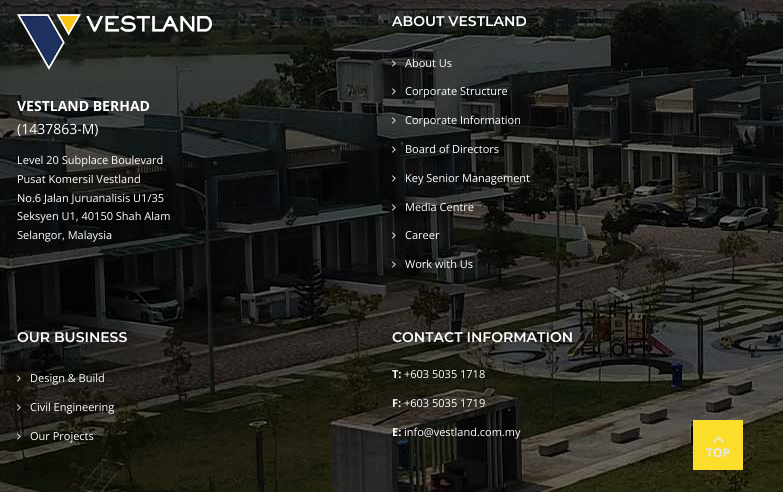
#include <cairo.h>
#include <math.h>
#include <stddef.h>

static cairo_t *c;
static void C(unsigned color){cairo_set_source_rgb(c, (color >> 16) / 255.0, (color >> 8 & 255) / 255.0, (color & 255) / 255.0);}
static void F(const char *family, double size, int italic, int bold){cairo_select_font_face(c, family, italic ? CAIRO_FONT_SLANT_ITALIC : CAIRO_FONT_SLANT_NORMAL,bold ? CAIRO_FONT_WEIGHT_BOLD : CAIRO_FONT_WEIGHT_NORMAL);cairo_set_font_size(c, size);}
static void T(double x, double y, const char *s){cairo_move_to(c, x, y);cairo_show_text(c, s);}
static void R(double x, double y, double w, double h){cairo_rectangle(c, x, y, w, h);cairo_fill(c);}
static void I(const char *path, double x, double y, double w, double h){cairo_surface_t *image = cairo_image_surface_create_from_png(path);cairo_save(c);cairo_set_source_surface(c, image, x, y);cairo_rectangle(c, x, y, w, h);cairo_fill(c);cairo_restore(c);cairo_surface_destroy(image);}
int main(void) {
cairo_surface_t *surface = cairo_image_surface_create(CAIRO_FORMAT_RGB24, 783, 492);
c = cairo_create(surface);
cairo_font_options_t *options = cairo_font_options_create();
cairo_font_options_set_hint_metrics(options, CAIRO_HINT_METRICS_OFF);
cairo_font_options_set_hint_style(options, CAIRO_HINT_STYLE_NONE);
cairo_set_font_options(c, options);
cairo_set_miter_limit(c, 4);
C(0xffffff);
cairo_paint(c);
I("1.png",0,0,783,492);
I("2.png",17,14,195,56);
F("Open Sans",14,0,1);
C(0xffffff);
T(17,111,"VESTLAND BERHAD");
F("Open Sans",14,0,0);
T(17,134,"(1437863-M)");
F("Open Sans",11,0,0);
T(17,164,"Level 20 Subplace Boulevard");
T(17,183,"Pusat Komersil Vestland");
T(17,202,"No.6 Jalan Juruanalisis U1/35");
T(17,220,"Seksyen U1, 40150 Shah Alam");
T(17,239,"Selangor, Malaysia");
F("Montserrat SemiBold",14,0,0);
T(392,26,"ABOUT VESTLAND");
I("3.png",392,60,4,7);
F("Open Sans",11,0,0);
T(405,67,"About Us");
I("4.png",392,88,4,7);
T(405,95,"Corporate Structure");
I("5.png",392,117,4,7);
T(405,124,"Corporate Information");
I("6.png",392,146,4,7);
T(405,153,"Board of Directors");
I("7.png",392,175,4,7);
T(405,182,"Key Senior Management");
I("8.png",392,204,4,7);
T(405,211,"Media Centre");
I("9.png",392,232,4,7);
T(405,239,"Career");
I("10.png",392,261,4,7);
T(405,268,"Work with Us");
F("Montserrat SemiBold",14,0,0);
T(17,342,"OUR BUSINESS");
I("11.png",17,375,4,7);
F("Open Sans",11,0,0);
T(30,382,"Design & Build");
I("12.png",17,404,4,7);
T(30,411,"Civil Engineering");
I("13.png",17,433,4,7);
T(30,440,"Our Projects");
F("Montserrat SemiBold",14,0,0);
T(392,342,"CONTACT INFORMATION");
F("Open Sans",11,0,1);
T(392,378,"T:");
F("Open Sans",11,0,0);
T(404,378,"+603 5035 1718");
F("Open Sans",11,0,1);
T(392,407,"F:");
F("Open Sans",11,0,0);
T(404,407,"+603 5035 1719");
F("Open Sans",11,0,1);
T(392,436,"E:");
F("Open Sans",11,0,0);
T(404,436,"info@vestland.com.my");
C(0xfade2a);
R(693,420,50,50);
I("14.png",712,436,12,7);
F("Open Sans",12,0,1);
C(0xe6e7e8);
T(706,457,"TOP");
cairo_surface_write_to_png(surface, "o.png");
cairo_font_options_destroy(options);
cairo_destroy(c);
cairo_surface_destroy(surface);
return 0;
}
